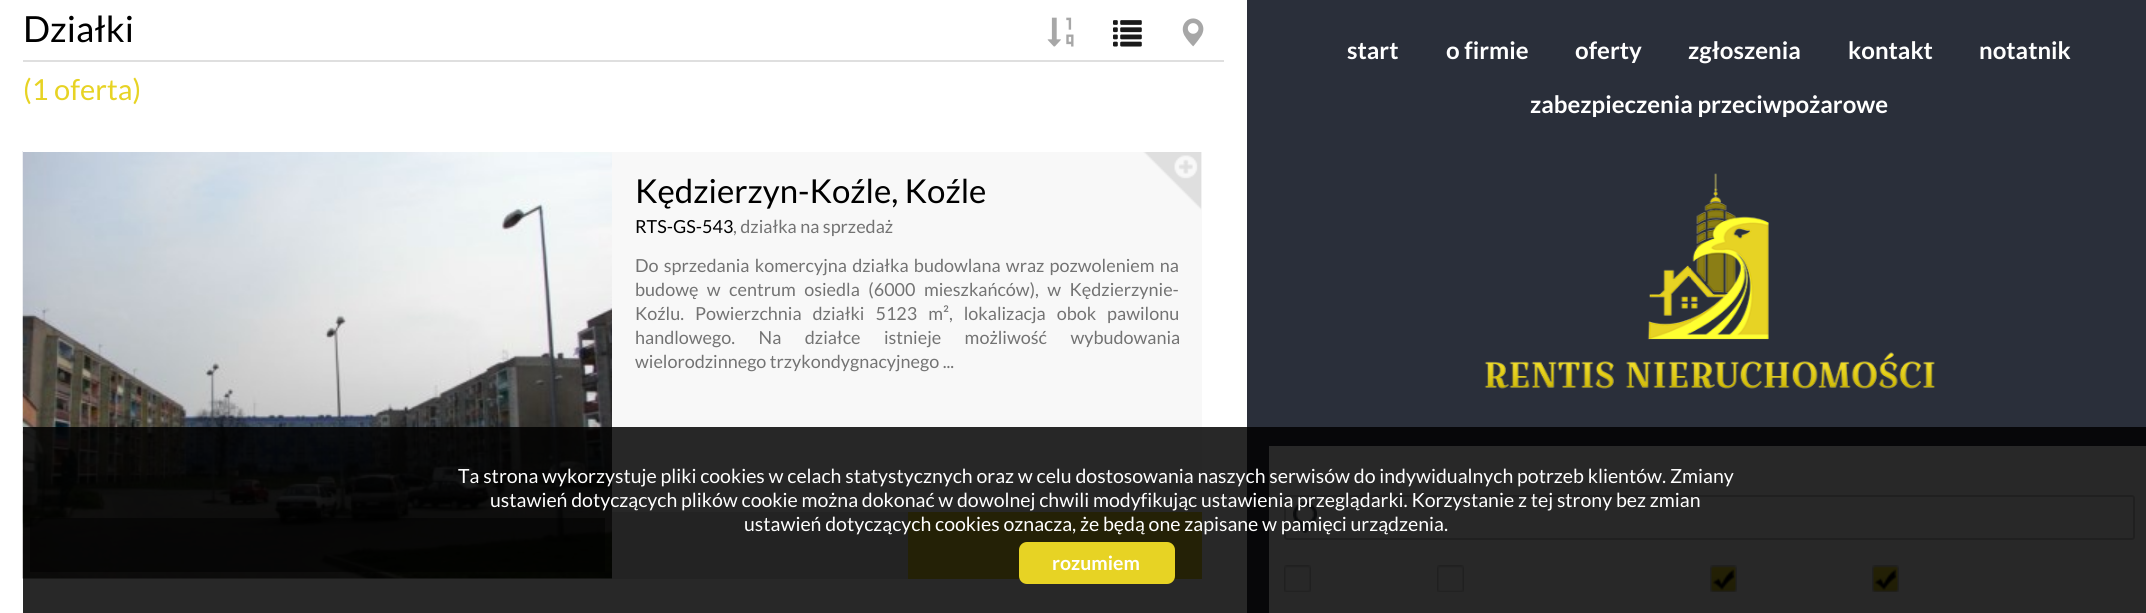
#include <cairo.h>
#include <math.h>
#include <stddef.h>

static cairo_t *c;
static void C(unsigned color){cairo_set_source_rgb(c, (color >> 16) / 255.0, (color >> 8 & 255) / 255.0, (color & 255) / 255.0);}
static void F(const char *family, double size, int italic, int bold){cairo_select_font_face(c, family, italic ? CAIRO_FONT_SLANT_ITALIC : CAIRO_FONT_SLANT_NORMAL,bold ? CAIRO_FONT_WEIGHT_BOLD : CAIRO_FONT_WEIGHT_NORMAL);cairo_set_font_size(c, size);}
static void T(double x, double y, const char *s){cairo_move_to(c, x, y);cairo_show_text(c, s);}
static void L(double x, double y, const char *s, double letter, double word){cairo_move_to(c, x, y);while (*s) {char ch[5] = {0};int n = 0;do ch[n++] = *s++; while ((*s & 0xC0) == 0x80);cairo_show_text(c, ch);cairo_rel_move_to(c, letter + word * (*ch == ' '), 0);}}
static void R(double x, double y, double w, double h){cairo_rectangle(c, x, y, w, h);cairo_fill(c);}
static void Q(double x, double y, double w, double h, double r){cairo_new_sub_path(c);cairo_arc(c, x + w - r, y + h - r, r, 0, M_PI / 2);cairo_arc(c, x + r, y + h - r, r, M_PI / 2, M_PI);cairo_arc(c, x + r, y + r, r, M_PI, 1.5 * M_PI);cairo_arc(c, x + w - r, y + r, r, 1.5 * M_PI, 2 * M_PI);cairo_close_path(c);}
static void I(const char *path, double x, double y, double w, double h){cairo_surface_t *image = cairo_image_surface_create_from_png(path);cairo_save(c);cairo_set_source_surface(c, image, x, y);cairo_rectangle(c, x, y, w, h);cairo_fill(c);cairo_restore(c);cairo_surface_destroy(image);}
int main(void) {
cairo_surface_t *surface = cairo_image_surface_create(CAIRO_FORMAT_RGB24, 2146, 613);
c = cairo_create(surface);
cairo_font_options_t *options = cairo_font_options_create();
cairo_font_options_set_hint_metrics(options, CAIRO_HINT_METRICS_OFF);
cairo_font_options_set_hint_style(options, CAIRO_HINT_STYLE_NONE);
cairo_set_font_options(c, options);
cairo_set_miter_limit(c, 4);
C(0xffffff);
cairo_paint(c);
C(0xf8f8f8);
R(23,578,589,1);
I("4.png",22,151,590,428);
C(0xffffff);
R(23,151,589,1);
F("Lato",36,0,0);
C(0x000000);
T(23,42,"Działki");
I("1.png",1047,17,27,30);
I("2.png",1113,20,29,27);
I("3.png",1182,18,22,29);
C(0xdfdfdf);
R(23,60,1201,2);
F("Lato",29,0,0);
C(0xe7d324);
T(23,100,"(1 oferta)");
cairo_set_source_rgba(c,0,0,0,0.5);
R(30,518,575,54);
C(0xf8f8f8);
R(612,152,590,360);
F("Lato",33,0,0);
C(0x000000);
T(635,203,"Kędzierzyn-Koźle, Koźle");
I("5.png",1143,152,59,58);
F("Lato",18,0,0);
T(635,233,"RTS-GS-543");
C(0x737373);
T(733,233,", działka na sprzedaż");
L(635,272,"Do sprzedania komercyjna działka budowlana wraz pozwoleniem na",0,1.75);
L(635,296,"budowę w centrum osiedla (6000 mieszkańców), w Kędzierzynie-",0,5);
T(635,320,"Koźlu.");
L(695,320,"Powierzchnia działki 5123 m², lokalizacja obok pawilonu",0,7.5);
L(635,344,"handlowego. Na działce istnieje możliwość wybudowania",0,20);
T(635,368,"wielorodzinnego trzykondygnacyjnego ...");
C(0xdedede);
R(612,512,296,67);
C(0xe7d324);
R(908,512,294,67);
C(0x2a2f3a);
R(1247,0,899,613);
F("Lato",24,0,1);
C(0xffffff);
T(1347,59,"start");
T(1446,59,"o firmie");
T(1575,59,"oferty");
T(1688,59,"zgłoszenia");
T(1848,59,"kontakt");
T(1979,59,"notatnik");
T(1530,113,"zabezpieczenia przeciwpożarowe");
I("6.png",1484,173,451,216);
R(1269,446,877,167);
I("8.png",1293,502,24,31);
I("7.png",1293,502,24,31);
Q(1285,496,849,43,2);
C(0xcccccc);
cairo_stroke(c);
I("9.png",1284,565,27,27);
I("9.png",1437,565,27,27);
I("10.png",1710,565,27,27);
I("10.png",1872,565,27,27);
cairo_set_source_rgba(c,0,0,0,0.84);
R(23,427,2123,186);
F("Lato",19.5,0,0);
C(0xffffff);
T(458,483,"Ta strona wykorzystuje pliki cookies w celach statystycznych oraz w celu dostosowania naszych serwisów do indywidualnych potrzeb klientów. Zmiany");
T(490,507,"ustawień dotyczących plików cookie można dokonać w dowolnej chwili modyfikując ustawienia przeglądarki. Korzystanie z tej strony bez zmian");
T(744,531,"ustawień dotyczących cookies oznacza, że będą one zapisane w pamięci urządzenia.");
C(0xe7d324);
Q(1019,542,156,42,8);
cairo_fill(c);
F("Lato",19.5,0,1);
C(0xffffff);
T(1052,570,"rozumiem");
cairo_surface_write_to_png(surface, "o.png");
cairo_font_options_destroy(options);
cairo_destroy(c);
cairo_surface_destroy(surface);
return 0;
}
